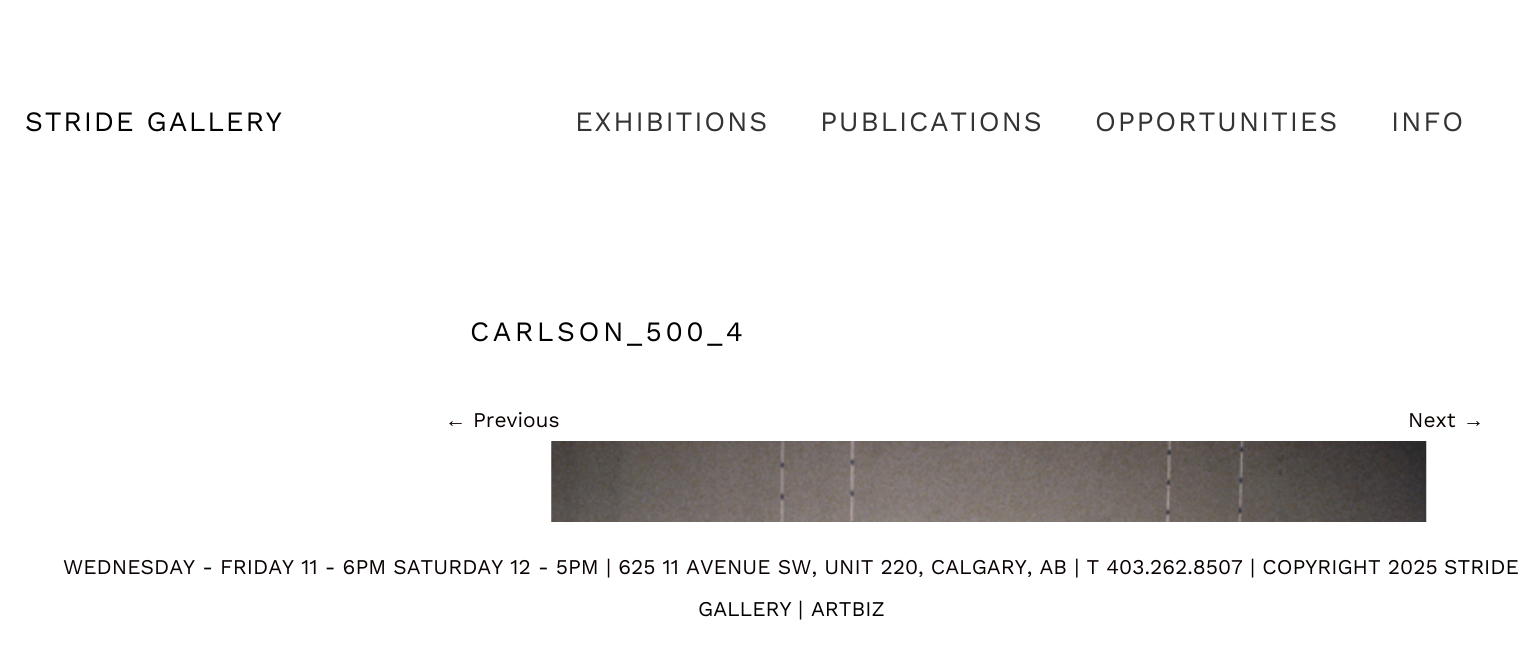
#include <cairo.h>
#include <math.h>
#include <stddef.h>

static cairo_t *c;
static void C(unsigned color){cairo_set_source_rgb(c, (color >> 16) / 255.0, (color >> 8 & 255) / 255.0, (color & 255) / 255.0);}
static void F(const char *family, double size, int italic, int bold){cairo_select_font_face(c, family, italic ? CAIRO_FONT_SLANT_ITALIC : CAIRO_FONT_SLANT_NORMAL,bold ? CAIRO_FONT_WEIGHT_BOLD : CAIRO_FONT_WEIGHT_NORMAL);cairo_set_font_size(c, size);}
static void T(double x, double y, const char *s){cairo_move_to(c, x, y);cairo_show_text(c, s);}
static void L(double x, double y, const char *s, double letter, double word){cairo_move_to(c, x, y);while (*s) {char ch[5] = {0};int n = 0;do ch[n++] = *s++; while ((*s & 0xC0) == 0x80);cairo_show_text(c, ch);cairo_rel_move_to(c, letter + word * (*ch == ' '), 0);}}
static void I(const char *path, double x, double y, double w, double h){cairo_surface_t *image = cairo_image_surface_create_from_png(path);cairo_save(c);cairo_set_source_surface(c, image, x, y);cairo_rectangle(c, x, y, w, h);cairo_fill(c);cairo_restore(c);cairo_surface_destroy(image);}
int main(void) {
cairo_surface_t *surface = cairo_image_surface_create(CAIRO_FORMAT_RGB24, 1532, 654);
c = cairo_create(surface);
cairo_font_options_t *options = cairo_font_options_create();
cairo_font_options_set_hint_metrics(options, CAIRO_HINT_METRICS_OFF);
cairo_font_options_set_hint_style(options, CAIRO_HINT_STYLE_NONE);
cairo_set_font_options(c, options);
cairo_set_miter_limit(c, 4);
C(0xffffff);
cairo_paint(c);
F("Work Sans",28,0,0);
C(0x000000);
L(25,131,"STRIDE GALLERY",1.75,0);
C(0x333333);
L(575,131,"EXHIBITIONS",1.75,0);
L(820,131,"PUBLICATIONS",1.75,0);
L(1095,131,"OPPORTUNITIES",1.75,0);
L(1391,131,"INFO",1.75,0);
C(0x000000);
L(470,341,"CARLSON_500_4",3.5,0);
F("Liberation Sans",21,0,0);
C(0x0a0101);
T(445,427,"←");
F("Work Sans",21,0,0);
T(473,427,"Previous");
T(1408,427,"Next");
F("Liberation Sans",21,0,0);
T(1463,427,"→");
I("1.png",551,441,876,81);
F("Work Sans",21,0,0);
T(63,574,"WEDNESDAY - FRIDAY 11 - 6PM SATURDAY 12 - 5PM | 625 11 AVENUE SW, UNIT 220, CALGARY, AB | T 403.262.8507 | COPYRIGHT 2025");
C(0x000000);
T(1444,574,"STRIDE");
T(698,616,"GALLERY");
C(0x0a0101);
T(798,616,"|");
C(0x000000);
T(811,616,"ARTBIZ");
cairo_surface_write_to_png(surface, "o.png");
cairo_font_options_destroy(options);
cairo_destroy(c);
cairo_surface_destroy(surface);
return 0;
}
